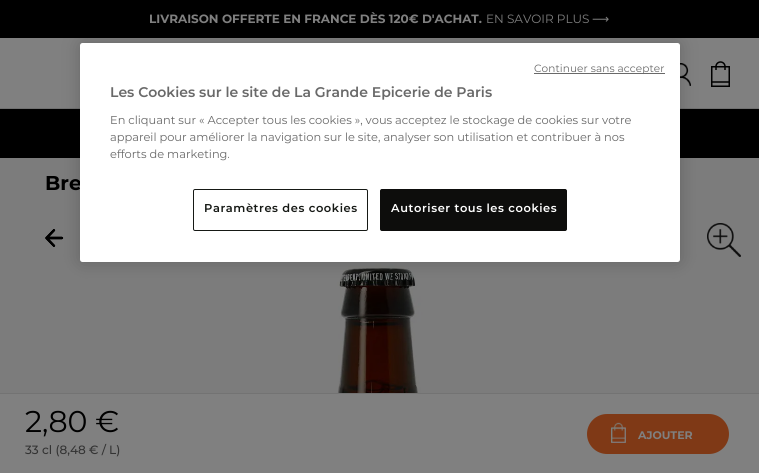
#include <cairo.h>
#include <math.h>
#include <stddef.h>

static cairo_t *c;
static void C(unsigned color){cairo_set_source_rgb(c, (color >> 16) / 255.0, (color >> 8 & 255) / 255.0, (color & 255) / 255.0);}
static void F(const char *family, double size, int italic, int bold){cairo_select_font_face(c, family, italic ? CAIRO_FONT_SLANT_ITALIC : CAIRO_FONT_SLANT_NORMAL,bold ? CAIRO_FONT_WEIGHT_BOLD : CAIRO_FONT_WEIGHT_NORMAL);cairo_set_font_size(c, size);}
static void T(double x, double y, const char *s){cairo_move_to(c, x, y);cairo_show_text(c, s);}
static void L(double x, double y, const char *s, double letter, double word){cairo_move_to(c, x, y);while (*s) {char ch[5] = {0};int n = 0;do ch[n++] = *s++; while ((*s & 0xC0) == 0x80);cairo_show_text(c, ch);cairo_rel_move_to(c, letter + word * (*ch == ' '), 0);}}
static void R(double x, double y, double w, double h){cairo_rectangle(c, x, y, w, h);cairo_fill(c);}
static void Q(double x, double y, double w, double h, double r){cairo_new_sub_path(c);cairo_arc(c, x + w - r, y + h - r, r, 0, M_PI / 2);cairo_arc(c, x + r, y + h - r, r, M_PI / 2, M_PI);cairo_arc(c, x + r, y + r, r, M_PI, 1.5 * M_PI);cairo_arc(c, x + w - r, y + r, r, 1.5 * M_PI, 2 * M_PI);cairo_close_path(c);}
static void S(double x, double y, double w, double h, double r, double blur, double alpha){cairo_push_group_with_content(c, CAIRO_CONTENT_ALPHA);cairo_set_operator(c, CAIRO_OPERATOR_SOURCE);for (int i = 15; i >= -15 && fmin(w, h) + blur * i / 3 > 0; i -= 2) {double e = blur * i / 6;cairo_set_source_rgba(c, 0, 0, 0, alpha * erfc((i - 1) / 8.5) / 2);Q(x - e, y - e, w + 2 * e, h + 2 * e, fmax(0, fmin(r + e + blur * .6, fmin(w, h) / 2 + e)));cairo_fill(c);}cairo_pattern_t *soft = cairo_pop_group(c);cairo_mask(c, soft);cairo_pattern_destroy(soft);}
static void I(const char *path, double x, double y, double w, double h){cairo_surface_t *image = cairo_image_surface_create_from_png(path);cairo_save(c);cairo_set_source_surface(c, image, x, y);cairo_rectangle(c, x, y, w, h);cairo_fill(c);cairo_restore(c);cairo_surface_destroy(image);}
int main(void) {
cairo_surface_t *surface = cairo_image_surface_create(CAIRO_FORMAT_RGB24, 759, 473);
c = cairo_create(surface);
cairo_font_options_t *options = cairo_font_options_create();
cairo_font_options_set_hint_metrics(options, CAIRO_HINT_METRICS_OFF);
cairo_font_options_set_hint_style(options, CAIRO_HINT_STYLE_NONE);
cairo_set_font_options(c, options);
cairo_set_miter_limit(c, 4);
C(0x808080);
cairo_paint(c);
C(0x000000);
R(0,0,759,38);
F("Montserrat",12,0,1);
C(0x808080);
T(149,23,"LIVRAISON OFFERTE EN FRANCE DÈS 120€ D'ACHAT.");
F("Montserrat",12,0,0);
T(486,23,"EN SAVOIR PLUS");
F("DejaVu Sans",12,0,0);
T(592,23,"⟶");
I("1.png",680,63,11,23);
I("2.png",711,61,19,26);
C(0x000000);
R(0,109,759,49);
C(0x707070);
R(0,108,759,1);
C(0x7c7c7c);
R(0,158,759,35);
F("Montserrat",20,0,1);
C(0x000000);
T(45,190,"Bre");
I("3.png",0,193,759,200);
I("4.png",707,223,34,34);
I("5.png",45,229,19,18);
C(0x737373);
R(0,393,759,1);
F("Montserrat",30,0,0);
C(0x000000);
T(25,432,"2,80 €");
F("Montserrat Medium",12,0,0);
C(0x333333);
T(25,454,"33 cl (8,48 € / L)");
C(0x7f3916);
Q(588,415,140,38,19);
cairo_fill_preserve(c);
cairo_stroke(c);
I("6.png",611,422,15,21);
F("Montserrat",11,0,1);
C(0x808080);
T(638,439,"AJOUTER");
C(0x000000);
S(80,43,600,219,2.5,9,.2);
C(0xffffff);
Q(80,43,600,219,2.5);
cairo_fill(c);
C(0x696969);
R(534,73,131,1);
F("Montserrat",10.5,0,0);
L(534,72,"Continuer sans accepter",.1,0);
F("Montserrat SemiBold",14,0,0);
T(110,97,"Les Cookies sur le site de La Grande Epicerie de Paris");
F("Montserrat",11.4,0,0);
T(110,124,"En cliquant sur « Accepter tous les cookies », vous acceptez le stockage de cookies sur votre");
T(110,141,"appareil pour améliorer la navigation sur le site, analyser son utilisation et contribuer à nos");
T(110,158,"efforts de marketing.");
Q(193.5,189.5,174,41,1.5);
C(0x161915);
cairo_set_line_width(c,1);
cairo_stroke(c);
F("Montserrat SemiBold",11.4,0,0);
L(204,212,"Paramètres des cookies",.6,0);
C(0x0d0d0c);
Q(380.5,189.5,186,41,1.5);
cairo_fill_preserve(c);
cairo_stroke(c);
C(0xffffff);
L(391,212,"Autoriser tous les cookies",.6,0);
cairo_surface_write_to_png(surface, "o.png");
cairo_font_options_destroy(options);
cairo_destroy(c);
cairo_surface_destroy(surface);
return 0;
}
